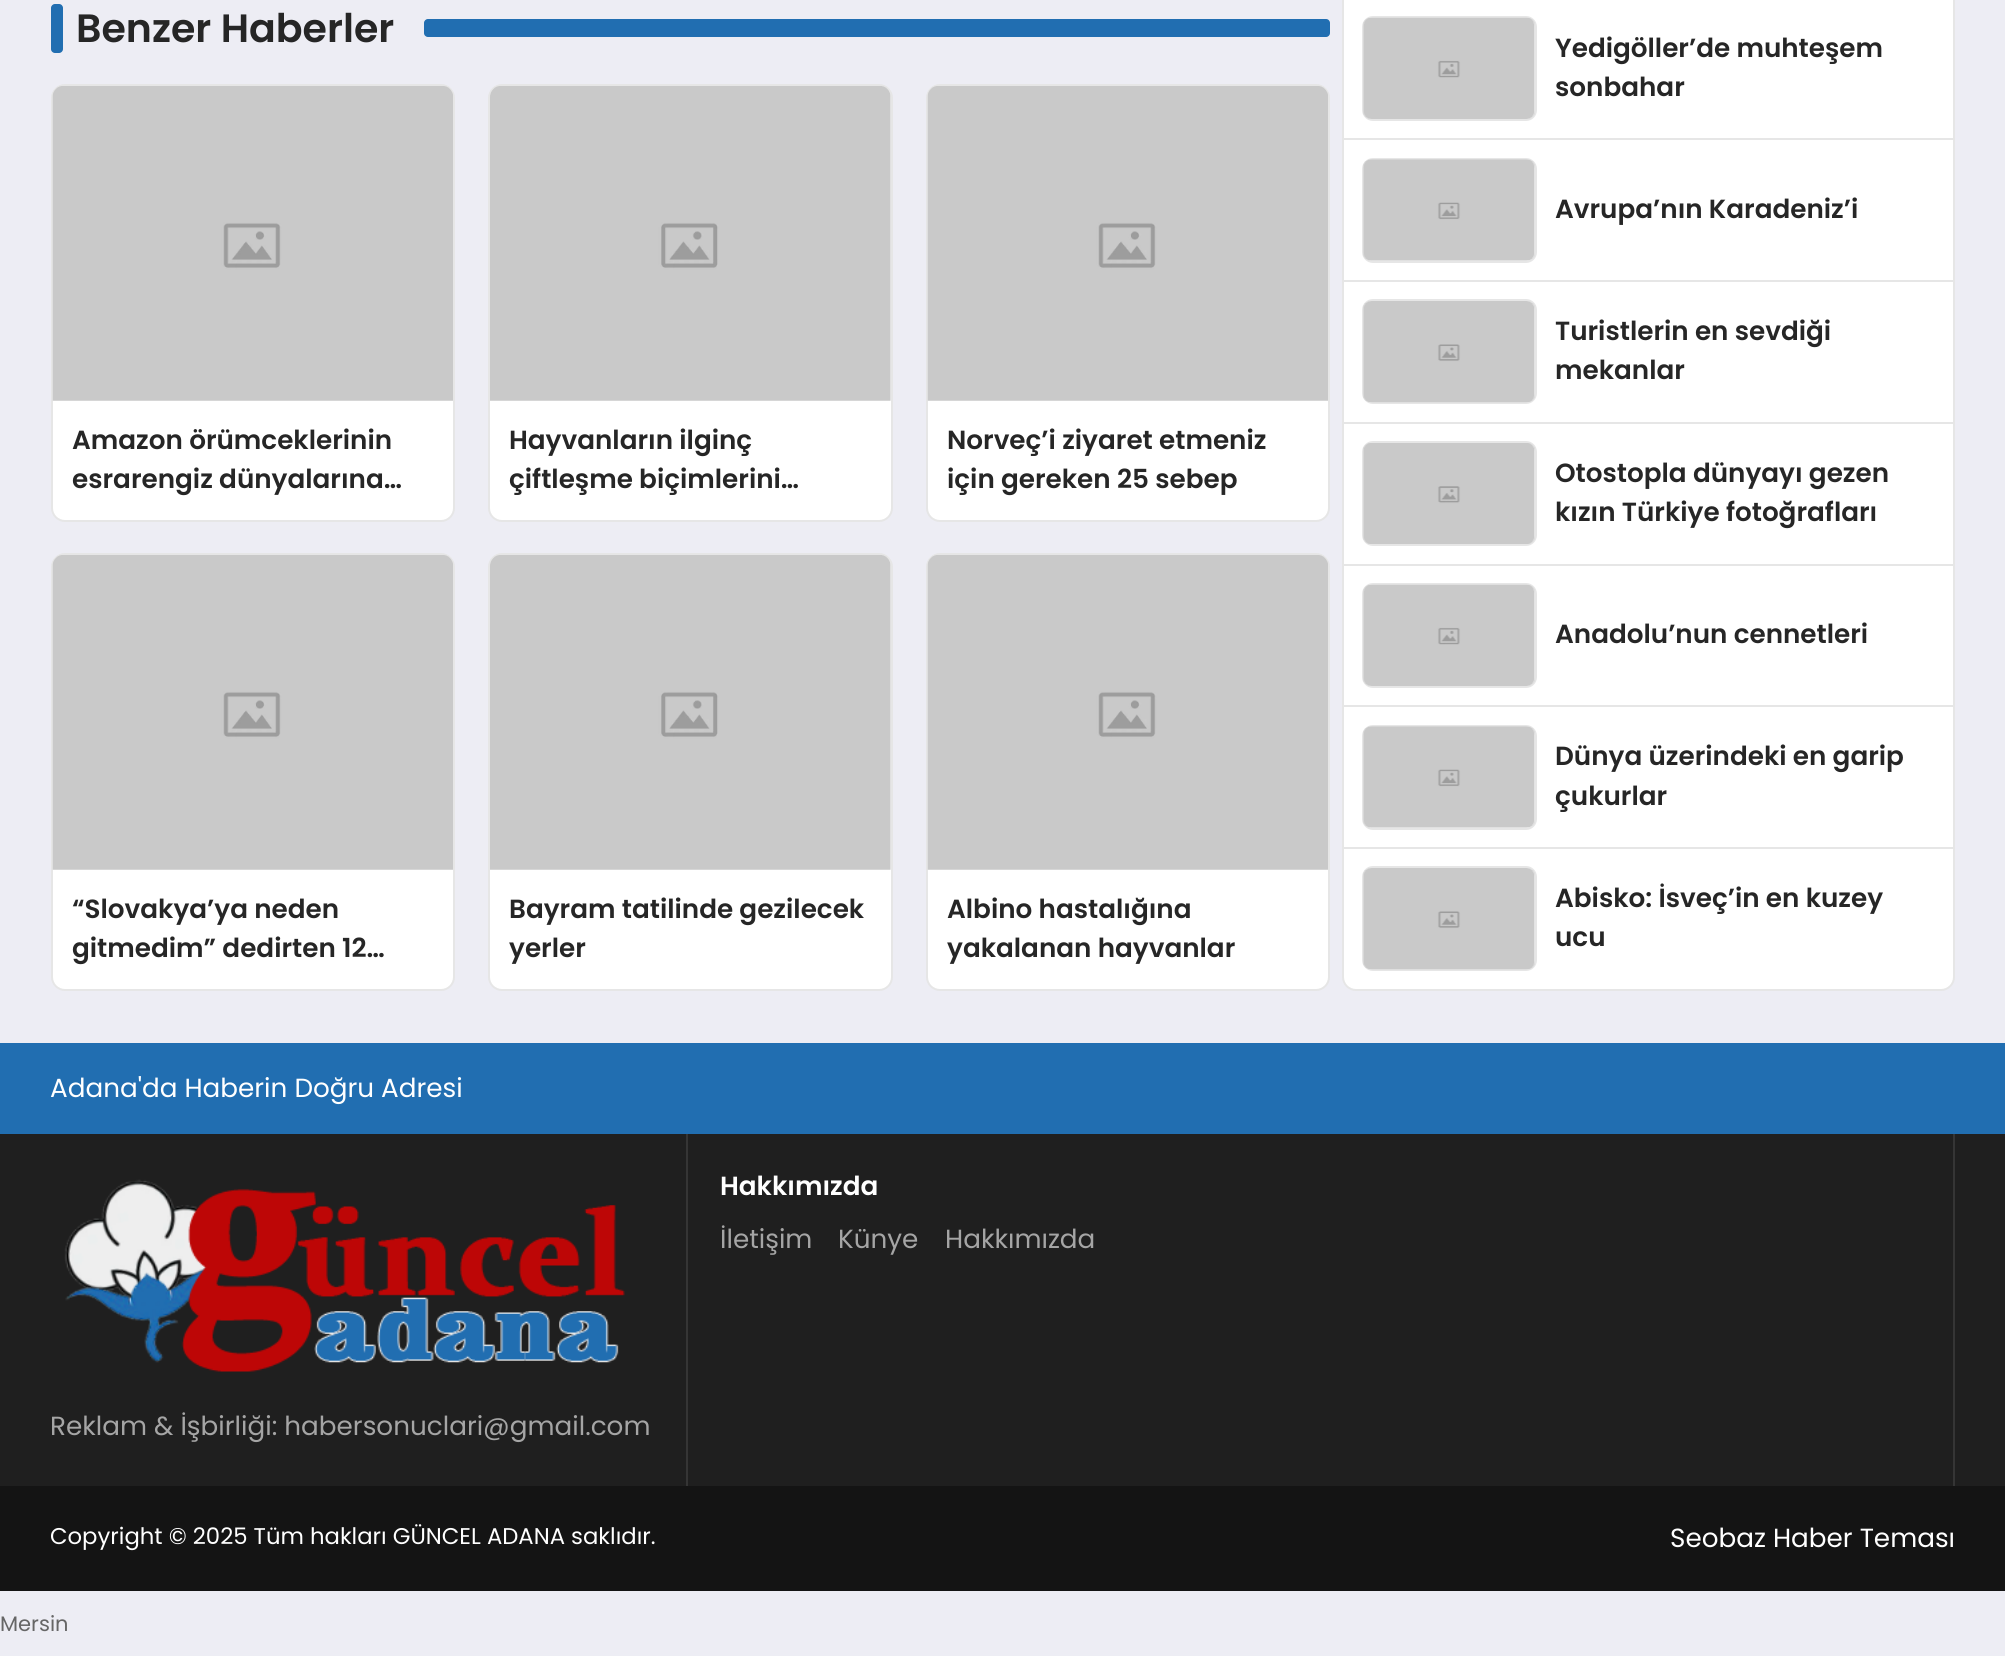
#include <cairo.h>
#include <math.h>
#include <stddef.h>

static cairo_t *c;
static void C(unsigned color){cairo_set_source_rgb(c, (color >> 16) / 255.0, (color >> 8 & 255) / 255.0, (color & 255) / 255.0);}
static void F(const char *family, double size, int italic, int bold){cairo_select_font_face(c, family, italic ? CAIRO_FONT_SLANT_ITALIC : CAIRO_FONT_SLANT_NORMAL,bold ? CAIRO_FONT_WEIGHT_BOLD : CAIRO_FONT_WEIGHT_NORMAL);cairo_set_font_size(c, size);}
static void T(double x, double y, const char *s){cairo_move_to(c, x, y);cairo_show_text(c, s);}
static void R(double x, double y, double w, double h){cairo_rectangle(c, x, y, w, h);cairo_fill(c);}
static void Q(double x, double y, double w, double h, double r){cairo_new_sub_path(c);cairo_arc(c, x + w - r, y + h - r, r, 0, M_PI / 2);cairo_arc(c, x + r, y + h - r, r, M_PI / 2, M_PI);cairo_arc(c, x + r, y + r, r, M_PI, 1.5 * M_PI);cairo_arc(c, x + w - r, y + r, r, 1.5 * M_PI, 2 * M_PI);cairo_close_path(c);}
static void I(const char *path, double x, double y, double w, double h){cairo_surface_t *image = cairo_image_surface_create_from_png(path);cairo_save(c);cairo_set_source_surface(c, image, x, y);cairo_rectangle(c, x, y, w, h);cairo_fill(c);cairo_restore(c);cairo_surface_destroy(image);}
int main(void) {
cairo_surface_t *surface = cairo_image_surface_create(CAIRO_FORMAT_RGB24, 2005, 1656);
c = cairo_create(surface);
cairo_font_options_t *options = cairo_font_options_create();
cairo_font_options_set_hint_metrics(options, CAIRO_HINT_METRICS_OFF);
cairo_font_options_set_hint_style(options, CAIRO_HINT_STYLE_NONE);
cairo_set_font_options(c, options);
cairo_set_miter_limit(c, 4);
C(0xededf4);
cairo_paint(c);
C(0x216eb1);
Q(51,4,12,49,4);
cairo_fill(c);
F("Poppins SemiBold",39.5,0,0);
C(0x262626);
T(76,42,"Benzer Haberler");
C(0x216eb1);
Q(424,19,906,18,4);
cairo_fill(c);
C(0xffffff);
Q(51,84,404,438,14);
cairo_fill(c);
Q(52,85,402,436,13);
cairo_set_source_rgba(c,0,0,0,0.1);
cairo_stroke(c);
I("1.png",52,86,401,315);
F("Poppins SemiBold",26.25,0,0);
C(0x262626);
T(72,449,"Amazon örümceklerinin");
T(72,488,"esrarengiz dünyalarına…");
C(0xffffff);
Q(488,84,405,438,14);
cairo_fill(c);
Q(489,85,403,436,13);
cairo_set_source_rgba(c,0,0,0,0.1);
cairo_stroke(c);
I("2.png",490,86,401,315);
C(0x262626);
T(509,449,"Hayvanların ilginç");
T(509,488,"çiftleşme biçimlerini…");
C(0xffffff);
Q(926,84,404,438,14);
cairo_fill(c);
Q(927,85,402,436,13);
cairo_set_source_rgba(c,0,0,0,0.1);
cairo_stroke(c);
I("3.png",927,86,401,315);
C(0x262626);
T(947,449,"Norveç’i ziyaret etmeniz");
T(947,488,"için gereken 25 sebep");
C(0xffffff);
Q(51,553,404,438,14);
cairo_fill(c);
Q(52,554,402,436,13);
cairo_set_source_rgba(c,0,0,0,0.1);
cairo_stroke(c);
I("1.png",52,555,401,315);
C(0x262626);
T(72,918,"“Slovakya’ya neden");
T(72,957,"gitmedim” dedirten 12…");
C(0xffffff);
Q(488,553,405,438,14);
cairo_fill(c);
Q(489,554,403,436,13);
cairo_set_source_rgba(c,0,0,0,0.1);
cairo_stroke(c);
I("2.png",490,555,401,315);
C(0x262626);
T(509,918,"Bayram tatilinde gezilecek");
T(509,957,"yerler");
C(0xffffff);
Q(926,553,404,438,14);
cairo_fill(c);
Q(927,554,402,436,13);
cairo_set_source_rgba(c,0,0,0,0.1);
cairo_stroke(c);
I("3.png",927,555,401,315);
C(0x262626);
T(947,918,"Albino hastalığına");
T(947,957,"yakalanan hayvanlar");
C(0xffffff);
Q(1342,-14,613,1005,14);
cairo_fill(c);
Q(1343,-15,611,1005,13);
cairo_set_source_rgba(c,0,0,0,0.1);
cairo_stroke(c);
C(0xe6e6e6);
R(1344,138,609,2);
Q(1363,17,173,103,10);
cairo_stroke(c);
I("4.png",1363,17,172,102);
C(0x262626);
T(1555,57,"Yedigöller’de muhteşem");
T(1555,96,"sonbahar");
C(0xe6e6e6);
R(1344,280,609,2);
Q(1363,159,173,103,10);
cairo_stroke(c);
I("5.png",1363,159,172,102);
C(0x262626);
T(1555,218,"Avrupa’nın Karadeniz’i");
C(0xe6e6e6);
R(1344,422,609,2);
Q(1363,300,173,103,10);
cairo_stroke(c);
I("6.png",1363,301,172,102);
C(0x262626);
T(1555,340,"Turistlerin en sevdiği");
T(1555,379,"mekanlar");
C(0xe6e6e6);
R(1344,564,609,2);
Q(1363,442,173,103,10);
cairo_stroke(c);
I("7.png",1363,443,172,101);
C(0x262626);
T(1555,482,"Otostopla dünyayı gezen");
T(1555,521,"kızın Türkiye fotoğrafları");
C(0xe6e6e6);
R(1344,705,609,2);
Q(1363,584,173,103,10);
cairo_stroke(c);
I("4.png",1363,584,172,102);
C(0x262626);
T(1555,643,"Anadolu’nun cennetleri");
C(0xe6e6e6);
R(1344,847,609,2);
Q(1363,726,173,103,10);
cairo_stroke(c);
I("5.png",1363,726,172,102);
C(0x262626);
T(1555,765,"Dünya üzerindeki en garip");
T(1555,805,"çukurlar");
Q(1363,867,173,103,10);
C(0xe6e6e6);
cairo_stroke(c);
I("6.png",1363,868,172,102);
C(0x262626);
T(1555,907,"Abisko: İsveç’in en kuzey");
T(1555,946,"ucu");
C(0x216eb1);
R(0,1043,2005,91);
F("Poppins",26.25,0,0);
C(0xffffff);
T(50,1097,"Adana'da Haberin Doğru Adresi");
C(0x1f1f1f);
R(0,1134,2005,352);
C(0x353535);
R(1953,1134,2,352);
R(686,1134,2,352);
F("Poppins SemiBold",26.25,0,0);
C(0xffffff);
T(720,1195,"Hakkımızda");
F("Poppins",26.25,0,0);
C(0xa5a5a5);
T(720,1248,"İletişim");
T(838,1248,"Künye");
T(945,1248,"Hakkımızda");
I("8.png",64,1179,561,193);
T(50,1435,"Reklam & İşbirliği: habersonuclari@gmail.com");
C(0x141414);
R(0,1486,2005,105);
F("Poppins",22.75,0,0);
C(0xffffff);
T(50,1544,"Copyright © 2025 Tüm hakları GÜNCEL ADANA saklıdır.");
F("Poppins",26.25,0,0);
T(1670,1547,"Seobaz Haber Teması");
F("Poppins",21,0,0);
C(0x666666);
T(0,1631,"Mersin");
cairo_surface_write_to_png(surface, "o.png");
cairo_font_options_destroy(options);
cairo_destroy(c);
cairo_surface_destroy(surface);
return 0;
}
